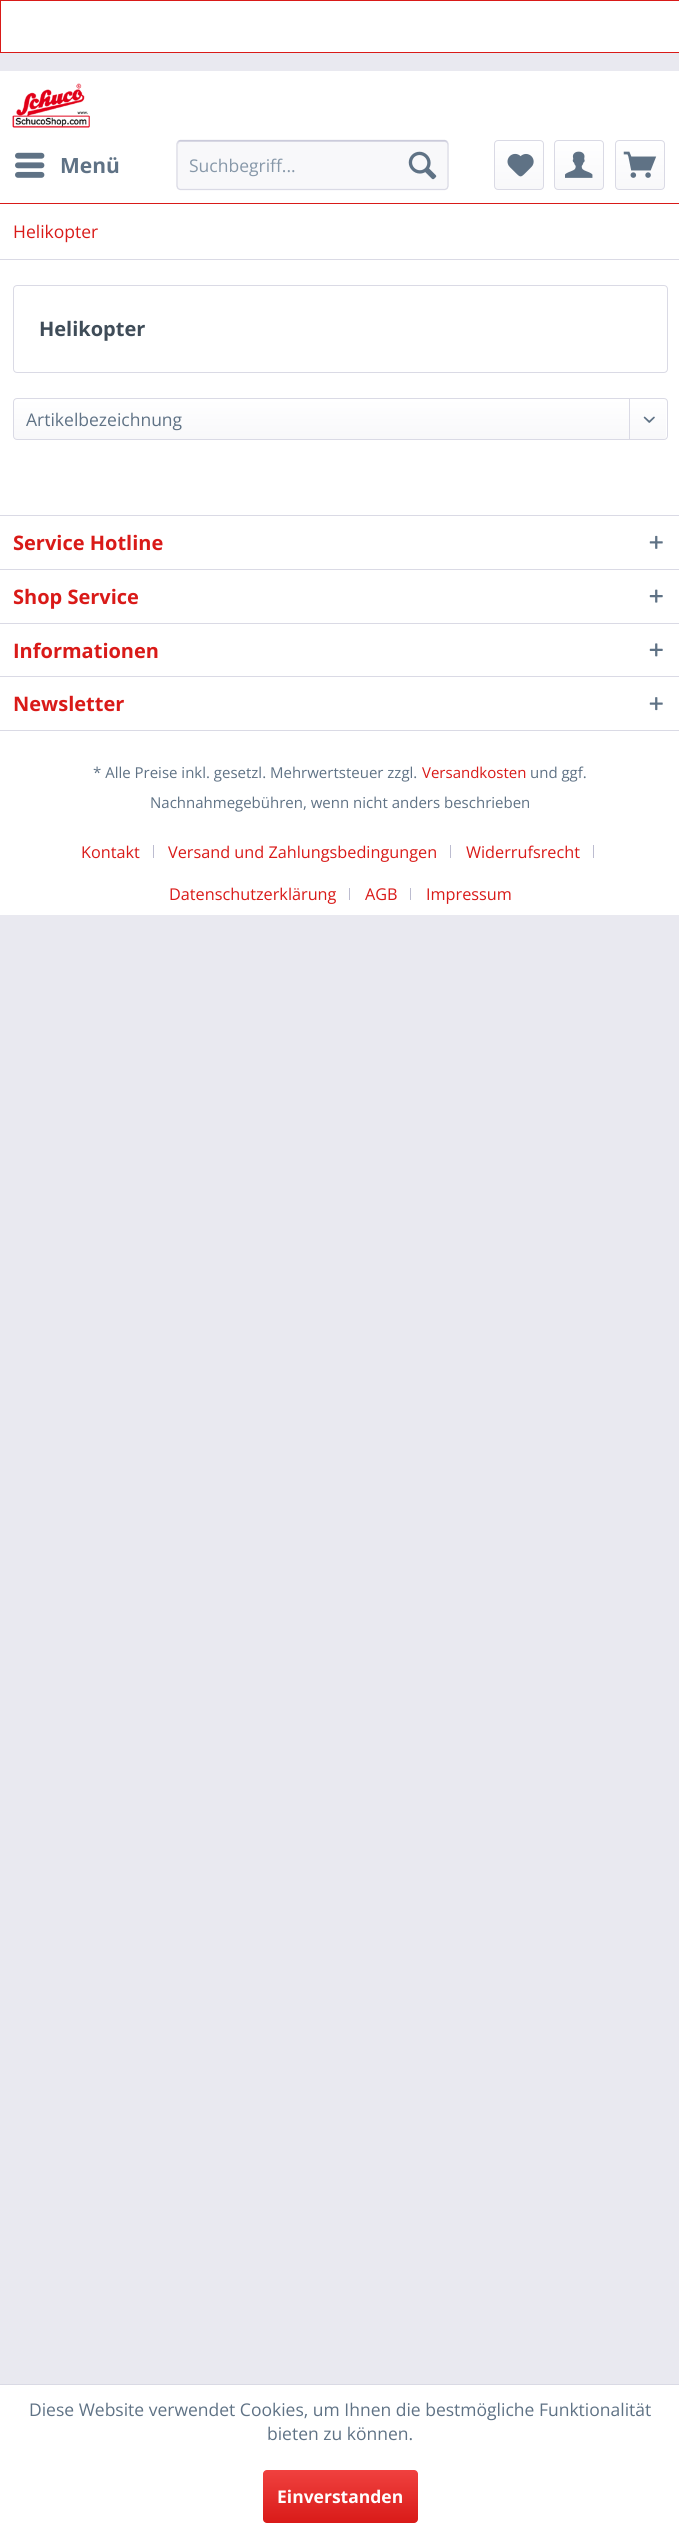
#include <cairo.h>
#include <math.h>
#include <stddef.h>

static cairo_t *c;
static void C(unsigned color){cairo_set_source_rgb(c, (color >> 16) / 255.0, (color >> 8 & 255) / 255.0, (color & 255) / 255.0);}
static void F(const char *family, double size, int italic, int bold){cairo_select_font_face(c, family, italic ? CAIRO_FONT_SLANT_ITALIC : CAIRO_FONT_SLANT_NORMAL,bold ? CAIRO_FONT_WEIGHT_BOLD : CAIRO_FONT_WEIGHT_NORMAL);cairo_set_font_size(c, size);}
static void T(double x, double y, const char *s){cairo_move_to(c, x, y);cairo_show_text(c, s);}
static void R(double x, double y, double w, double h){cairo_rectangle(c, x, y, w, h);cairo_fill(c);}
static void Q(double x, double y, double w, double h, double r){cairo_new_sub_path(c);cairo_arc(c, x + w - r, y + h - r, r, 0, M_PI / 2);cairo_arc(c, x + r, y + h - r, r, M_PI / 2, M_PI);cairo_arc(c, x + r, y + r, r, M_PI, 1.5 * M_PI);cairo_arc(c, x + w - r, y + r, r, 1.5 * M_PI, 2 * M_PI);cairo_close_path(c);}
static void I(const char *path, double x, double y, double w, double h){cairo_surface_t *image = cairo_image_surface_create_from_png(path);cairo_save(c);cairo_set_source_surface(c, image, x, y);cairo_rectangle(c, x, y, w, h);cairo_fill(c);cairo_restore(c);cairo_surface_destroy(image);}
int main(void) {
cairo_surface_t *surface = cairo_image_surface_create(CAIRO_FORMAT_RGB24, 679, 2535);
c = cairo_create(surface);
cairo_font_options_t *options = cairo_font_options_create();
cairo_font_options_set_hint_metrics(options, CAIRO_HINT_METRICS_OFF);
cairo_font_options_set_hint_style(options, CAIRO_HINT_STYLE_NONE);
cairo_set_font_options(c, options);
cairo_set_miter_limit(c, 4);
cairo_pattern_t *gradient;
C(0xe9e9f0);
cairo_paint(c);
C(0xffffff);
cairo_rectangle(c,.5,.5,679,52);
cairo_fill_preserve(c);
C(0xd91a18);
cairo_set_line_width(c,1);
cairo_stroke(c);
C(0xffffff);
R(0,71,679,132);
C(0xd91a18);
R(0,203,679,1);
I("1.png",12,83,78,45);
I("2.png",15,152,30,26);
F("Open Sans",21,0,1);
C(0x5f7285);
T(60,173,"Menü");
C(0xf8f8fa);
Q(176,140,273,50,4);
cairo_fill(c);
C(0xdadae5);
cairo_new_path(c);
cairo_move_to(c,180,142);
cairo_line_to(c,445,142);
cairo_curve_to(c,446,142,448,144,448,145);
cairo_line_to(c,448,144);
cairo_curve_to(c,448,142,447,141,446,141);
cairo_line_to(c,180,141);
cairo_curve_to(c,179,141,178,142,178,144);
cairo_line_to(c,178,145);
cairo_curve_to(c,178,144,179,142,180,142);
cairo_close_path(c);
cairo_fill(c);
cairo_new_path(c);
cairo_move_to(c,178,141.5);
cairo_line_to(c,180,140.5);
cairo_line_to(c,445,140.5);
cairo_line_to(c,447,141.5);
C(0xcbcbdb);
cairo_set_line_width(c,1.2);
cairo_stroke(c);
cairo_new_path(c);
cairo_move_to(c,447,141.5);
cairo_line_to(c,448,144);
cairo_line_to(c,448,186);
cairo_line_to(c,447,188.5);
cairo_line_to(c,445,189.5);
cairo_line_to(c,180,189.5);
cairo_line_to(c,178,188.5);
cairo_line_to(c,177,186);
cairo_line_to(c,177,144);
cairo_line_to(c,178,141.5);
C(0xdadae5);
cairo_stroke(c);
F("Open Sans",17.5,0,0);
C(0x8798a9);
T(189,172,"Suchbegriff...");
I("3.png",408,151,29,29);
gradient = cairo_pattern_create_linear(519,141,519,189);
cairo_pattern_add_color_stop_rgba(gradient,0,1,1,1,1);
cairo_pattern_add_color_stop_rgba(gradient,1,0.973,0.973,0.98,1);
cairo_set_source(c,gradient);
cairo_pattern_destroy(gradient);
Q(495,141,48,48,2.5);
cairo_fill(c);
Q(494.5,140.5,49,49,3.5);
C(0xdadae5);
cairo_set_line_width(c,1);
cairo_stroke(c);
I("4.png",507,153,27,24);
gradient = cairo_pattern_create_linear(579,141,579,189);
cairo_pattern_add_color_stop_rgba(gradient,0,1,1,1,1);
cairo_pattern_add_color_stop_rgba(gradient,1,0.973,0.973,0.98,1);
cairo_set_source(c,gradient);
cairo_pattern_destroy(gradient);
Q(555,141,48,48,2.5);
cairo_fill(c);
Q(554.5,140.5,49,49,3.5);
C(0xdadae5);
cairo_stroke(c);
I("5.png",565,151,28,27);
gradient = cairo_pattern_create_linear(640,141,640,189);
cairo_pattern_add_color_stop_rgba(gradient,0,1,1,1,1);
cairo_pattern_add_color_stop_rgba(gradient,1,0.973,0.973,0.98,1);
cairo_set_source(c,gradient);
cairo_pattern_destroy(gradient);
Q(616,141,48,48,2.5);
cairo_fill(c);
Q(615.5,140.5,49,49,3.5);
C(0xdadae5);
cairo_stroke(c);
I("6.png",623,151,34,27);
C(0xffffff);
R(0,204,679,311);
C(0xdadae5);
R(0,259,679,1);
C(0xd91a18);
T(13,238,"Helikopter");
Q(13.5,285.5,654,87,3.5);
C(0xdadae5);
cairo_stroke(c);
F("Open Sans",20,0,1);
C(0x3f4c58);
T(39,336,"Helikopter");
gradient = cairo_pattern_create_linear(340,399,340,439);
cairo_pattern_add_color_stop_rgba(gradient,0,1,1,1,1);
cairo_pattern_add_color_stop_rgba(gradient,1,0.973,0.973,0.98,1);
cairo_set_source(c,gradient);
cairo_pattern_destroy(gradient);
Q(14,399,652,40,2.5);
cairo_fill(c);
Q(13.5,398.5,654,41,3.5);
C(0xdadae5);
cairo_stroke(c);
F("Open Sans",17.5,0,0);
C(0x5f7285);
T(26,426,"Artikelbezeichnung");
C(0xdadae5);
R(629,399,1,41);
I("7.png",643,416,12,7);
C(0xffffff);
R(0,516,679,399);
C(0xdadae5);
R(0,515,679,1);
F("Open Sans",20,0,1);
C(0xd91a18);
T(13,550,"Service Hotline");
I("8.png",649,535,14,14);
C(0xdadae5);
R(0,569,679,1);
C(0xd91a18);
T(13,604,"Shop Service");
I("9.png",649,589,14,14);
C(0xdadae5);
R(0,623,679,1);
C(0xd91a18);
T(13,658,"Informationen");
I("10.png",649,643,14,14);
C(0xdadae5);
R(0,676,679,1);
R(0,730,679,1);
C(0xd91a18);
T(13,711,"Newsletter");
I("11.png",649,697,14,14);
F("Open Sans",15,0,0);
C(0x5f7285);
T(93,778,"* Alle Preise inkl. gesetzl. Mehrwertsteuer zzgl.");
C(0xd91a18);
T(422,778,"Versandkosten");
C(0x5f7285);
T(530,778,"und ggf.");
T(150,808,"Nachnahmegebühren, wenn nicht anders beschrieben");
F("Open Sans",16.25,0,0);
C(0xd91a18);
T(81,858,"Kontakt");
C(0xbcbcd0);
R(153,845,1,13);
C(0xd91a18);
T(168,858,"Versand und Zahlungsbedingungen");
C(0xbcbcd0);
R(450,845,1,13);
C(0xd91a18);
T(466,858,"Widerrufsrecht");
C(0xbcbcd0);
R(593,845,1,13);
C(0xd91a18);
T(169,900,"Datenschutzerklärung");
C(0xbcbcd0);
R(349,888,1,12);
C(0xd91a18);
T(365,900,"AGB");
C(0xbcbcd0);
R(410,888,1,12);
C(0xd91a18);
T(426,900,"Impressum");
C(0xffffff);
R(0,2385,679,150);
C(0xdadae5);
R(0,2384,679,1);
F("Open Sans",17.5,0,0);
C(0x5f7285);
T(29,2416,"Diese Website verwendet Cookies, um Ihnen die bestmögliche Funktionalität");
T(267,2440,"bieten zu können.");
gradient = cairo_pattern_create_linear(340,2470,340,2523);
cairo_pattern_add_color_stop_rgba(gradient,0,0.941,0.255,0.247,1);
cairo_pattern_add_color_stop_rgba(gradient,1,0.851,0.102,0.094,1);
cairo_set_source(c,gradient);
cairo_pattern_destroy(gradient);
Q(263,2470,155,53,4);
cairo_fill(c);
F("Open Sans",17.5,0,1);
C(0xffffff);
T(277,2503,"Einverstanden");
cairo_surface_write_to_png(surface, "o.png");
cairo_font_options_destroy(options);
cairo_destroy(c);
cairo_surface_destroy(surface);
return 0;
}
